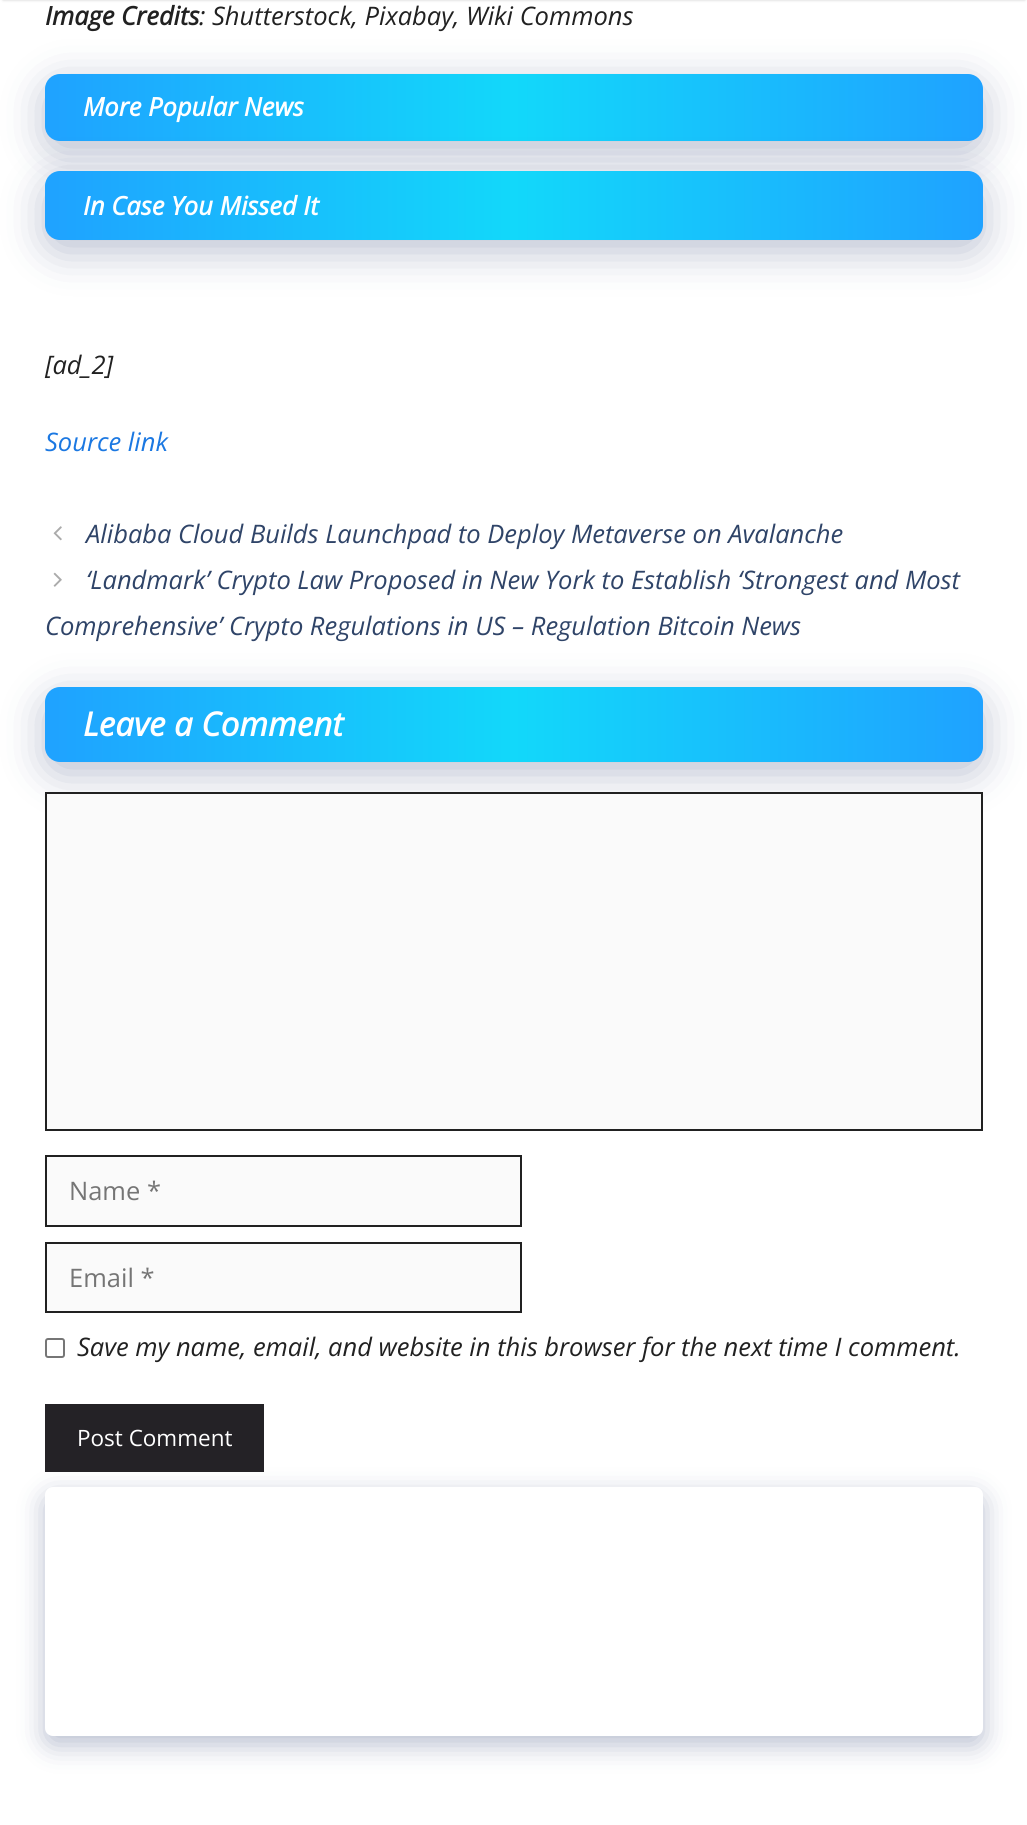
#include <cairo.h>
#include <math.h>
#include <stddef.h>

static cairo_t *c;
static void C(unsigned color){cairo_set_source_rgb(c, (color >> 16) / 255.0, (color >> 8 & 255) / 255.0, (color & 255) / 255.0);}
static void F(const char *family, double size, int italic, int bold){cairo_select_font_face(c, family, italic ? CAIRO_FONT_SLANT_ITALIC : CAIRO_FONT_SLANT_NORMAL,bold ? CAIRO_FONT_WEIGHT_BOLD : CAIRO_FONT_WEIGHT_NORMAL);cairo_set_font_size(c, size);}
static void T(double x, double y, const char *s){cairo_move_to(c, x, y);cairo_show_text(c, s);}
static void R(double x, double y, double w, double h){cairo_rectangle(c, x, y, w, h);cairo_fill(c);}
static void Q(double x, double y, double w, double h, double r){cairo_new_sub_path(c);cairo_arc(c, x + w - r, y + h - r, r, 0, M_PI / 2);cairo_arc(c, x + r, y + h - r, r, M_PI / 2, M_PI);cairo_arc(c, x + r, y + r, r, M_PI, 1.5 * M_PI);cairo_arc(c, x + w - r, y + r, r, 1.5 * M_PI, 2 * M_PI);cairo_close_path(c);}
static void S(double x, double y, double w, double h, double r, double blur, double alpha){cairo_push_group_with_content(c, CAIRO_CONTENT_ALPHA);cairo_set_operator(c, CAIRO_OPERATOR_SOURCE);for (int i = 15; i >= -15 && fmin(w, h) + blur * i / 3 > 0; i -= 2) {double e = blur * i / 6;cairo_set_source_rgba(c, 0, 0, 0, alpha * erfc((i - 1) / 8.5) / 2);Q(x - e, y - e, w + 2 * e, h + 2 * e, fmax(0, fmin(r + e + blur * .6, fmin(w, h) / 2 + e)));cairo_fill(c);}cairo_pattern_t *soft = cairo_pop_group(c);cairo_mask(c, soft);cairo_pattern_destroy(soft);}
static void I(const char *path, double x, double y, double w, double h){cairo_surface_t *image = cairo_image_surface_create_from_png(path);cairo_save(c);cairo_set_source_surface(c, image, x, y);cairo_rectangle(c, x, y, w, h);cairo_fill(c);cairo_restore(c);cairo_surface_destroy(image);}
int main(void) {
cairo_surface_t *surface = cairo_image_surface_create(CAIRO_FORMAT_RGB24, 1027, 1825);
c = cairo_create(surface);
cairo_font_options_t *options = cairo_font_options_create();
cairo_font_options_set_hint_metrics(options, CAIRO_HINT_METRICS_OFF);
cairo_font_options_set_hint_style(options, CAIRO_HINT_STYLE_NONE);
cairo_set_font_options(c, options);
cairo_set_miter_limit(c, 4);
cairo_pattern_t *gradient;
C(0xffffff);
cairo_paint(c);
C(0x000000);
S(3,-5,1022,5,0,1.5,.2);
C(0x172b63);
S(45,84,938,68,15,21,.3);
F("Open Sans",25.5,1,1);
C(0x212121);
T(45,25,"Image Credits");
F("Open Sans",25.5,1,0);
T(199,25,": Shutterstock, Pixabay, Wiki Commons");
gradient = cairo_pattern_create_linear(45,107,983,107);
cairo_pattern_add_color_stop_rgba(gradient,0,0.122,0.635,1,1);
cairo_pattern_add_color_stop_rgba(gradient,.5,0.071,0.847,0.98,1);
cairo_pattern_add_color_stop_rgba(gradient,1,0.122,0.635,1,1);
cairo_set_source(c,gradient);
cairo_pattern_destroy(gradient);
Q(45,74,938,67,15);
cairo_fill(c);
C(0x172b63);
S(45,182,938,69,15,21,.3);
F("Open Sans",25.5,1,1);
C(0xffffff);
T(83,116,"More Popular News");
gradient = cairo_pattern_create_linear(45,206,983,205);
cairo_pattern_add_color_stop_rgba(gradient,0,0.122,0.635,1,1);
cairo_pattern_add_color_stop_rgba(gradient,.5,0.071,0.847,0.98,1);
cairo_pattern_add_color_stop_rgba(gradient,1,0.122,0.635,1,1);
cairo_set_source(c,gradient);
cairo_pattern_destroy(gradient);
Q(45,171,938,69,15);
cairo_fill(c);
C(0xffffff);
T(83,215,"In Case You Missed It");
F("Open Sans",25.5,1,0);
C(0x212121);
T(45,374,"[ad_2]");
C(0x1b78e2);
T(45,451,"Source link");
I("1.png",53,526,9,15);
C(0x2f4468);
T(86,543,"Alibaba Cloud Builds Launchpad to Deploy Metaverse on Avalanche");
I("2.png",53,572,9,15);
T(86,589,"‘Landmark’ Crypto Law Proposed in New York to Establish ‘Strongest and Most");
C(0x172b63);
S(45,698,938,75,15,21,.3);
C(0x2f4468);
T(45,635,"Comprehensive’ Crypto Regulations in US – Regulation Bitcoin News");
gradient = cairo_pattern_create_linear(45,725,983,725);
cairo_pattern_add_color_stop_rgba(gradient,0,0.122,0.635,1,1);
cairo_pattern_add_color_stop_rgba(gradient,.5,0.071,0.847,0.98,1);
cairo_pattern_add_color_stop_rgba(gradient,1,0.122,0.635,1,1);
cairo_set_source(c,gradient);
cairo_pattern_destroy(gradient);
Q(45,687,938,75,15);
cairo_fill(c);
F("Open Sans",33,1,1);
C(0xffffff);
T(83,736,"Leave a Comment");
C(0xfafafa);
cairo_rectangle(c,46,793,936,337);
cairo_fill_preserve(c);
C(0x212121);
cairo_stroke(c);
C(0xfafafa);
cairo_rectangle(c,46,1156,475,70);
cairo_fill_preserve(c);
C(0x212121);
cairo_stroke(c);
F("Open Sans",25.5,0,0);
C(0x757575);
T(69,1200,"Name *");
C(0xfafafa);
cairo_rectangle(c,46,1243,475,69);
cairo_fill_preserve(c);
C(0x212121);
cairo_stroke(c);
C(0x757575);
T(69,1287,"Email *");
Q(46,1339,18,18,2);
C(0x767676);
cairo_stroke(c);
F("Open Sans",25.5,1,0);
C(0x212121);
T(77,1356,"Save my name, email, and website in this browser for the next time I comment.");
C(0x172b63);
S(45,1496,938,249,8,13.5,.3);
C(0x242226);
R(45,1404,219,68);
F("Open Sans",22.5,0,0);
C(0xffffff);
T(77,1446,"Post Comment");
Q(45,1487,938,249,8);
cairo_fill(c);
cairo_surface_write_to_png(surface, "o.png");
cairo_font_options_destroy(options);
cairo_destroy(c);
cairo_surface_destroy(surface);
return 0;
}
